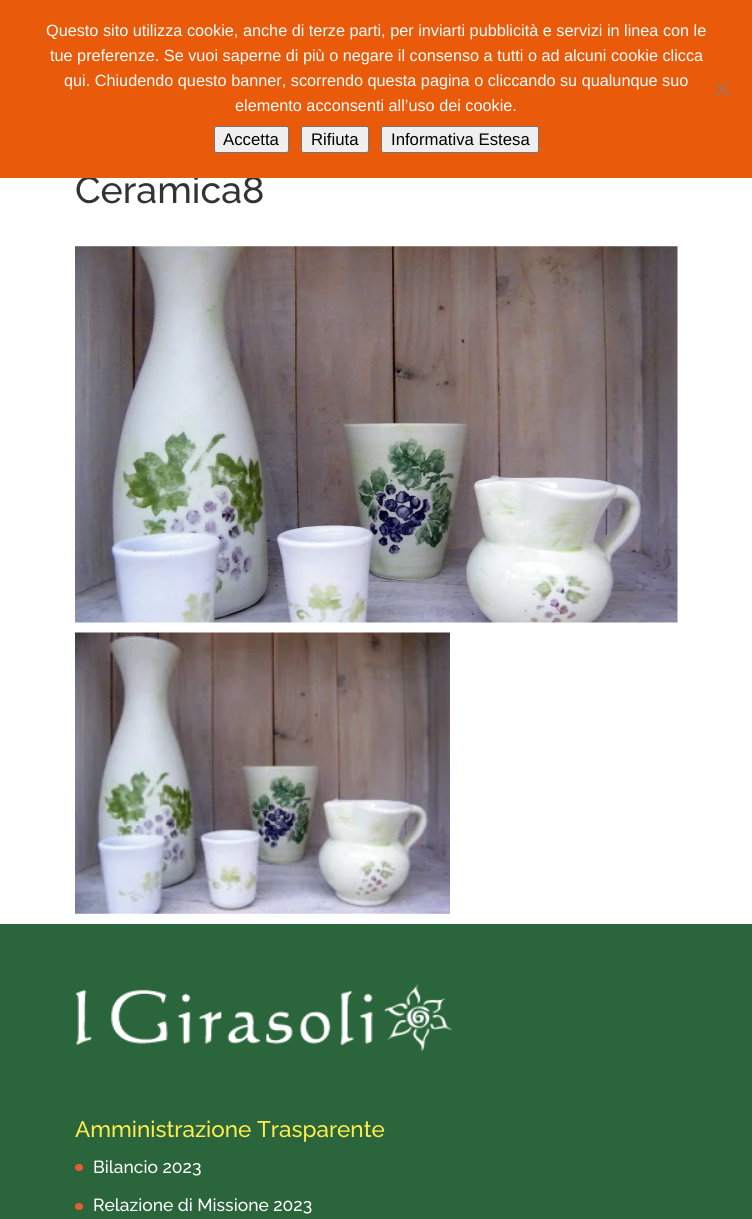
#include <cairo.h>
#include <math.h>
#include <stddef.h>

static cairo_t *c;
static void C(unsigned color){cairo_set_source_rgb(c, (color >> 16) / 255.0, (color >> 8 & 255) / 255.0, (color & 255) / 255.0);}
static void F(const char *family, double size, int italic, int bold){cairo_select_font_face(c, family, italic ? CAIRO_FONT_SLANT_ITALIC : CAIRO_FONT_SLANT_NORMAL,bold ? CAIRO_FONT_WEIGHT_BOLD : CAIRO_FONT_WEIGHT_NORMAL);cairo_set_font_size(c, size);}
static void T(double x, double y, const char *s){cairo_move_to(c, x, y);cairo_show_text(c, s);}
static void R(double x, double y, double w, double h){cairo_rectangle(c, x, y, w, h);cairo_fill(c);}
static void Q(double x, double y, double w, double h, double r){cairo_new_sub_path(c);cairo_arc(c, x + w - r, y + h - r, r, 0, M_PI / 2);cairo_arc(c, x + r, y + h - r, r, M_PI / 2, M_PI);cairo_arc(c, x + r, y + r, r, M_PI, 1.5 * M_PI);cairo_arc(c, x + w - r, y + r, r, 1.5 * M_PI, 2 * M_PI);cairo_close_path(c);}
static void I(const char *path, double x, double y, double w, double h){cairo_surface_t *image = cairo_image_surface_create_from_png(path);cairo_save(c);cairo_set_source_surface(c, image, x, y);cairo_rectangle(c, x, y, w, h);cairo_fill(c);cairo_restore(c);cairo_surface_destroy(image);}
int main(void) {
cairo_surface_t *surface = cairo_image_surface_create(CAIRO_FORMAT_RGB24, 752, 1219);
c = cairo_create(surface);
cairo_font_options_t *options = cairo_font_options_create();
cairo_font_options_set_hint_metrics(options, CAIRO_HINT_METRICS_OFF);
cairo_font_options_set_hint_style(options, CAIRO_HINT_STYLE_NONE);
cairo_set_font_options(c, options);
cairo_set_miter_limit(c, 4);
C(0xffffff);
cairo_paint(c);
F("Raleway Medium",37.5,0,0);
C(0x333333);
T(75,203,"Ceramica8");
C(0xea5a0b);
R(0,0,752,178);
F("Liberation Sans",16.25,0,0);
C(0xffffff);
T(46,36,"Questo sito utilizza cookie, anche di terze parti, per inviarti pubblicità e servizi in linea con le");
T(50,61,"tue preferenze. Se vuoi saperne di più o negare il consenso a tutti o ad alcuni cookie clicca");
T(64,86,"qui. Chiudendo questo banner, scorrendo questa pagina o cliccando su qualunque suo");
T(235,111,"elemento acconsenti all’uso dei cookie.");
C(0xb56d46);
cairo_new_path(c);
cairo_move_to(c,728,82);
cairo_line_to(c,730,83.5);
cairo_line_to(c,717,97);
cairo_line_to(c,715,95);
cairo_close_path(c);
cairo_fill(c);
cairo_new_path(c);
cairo_move_to(c,715,83.5);
cairo_line_to(c,717,82);
cairo_line_to(c,730,95);
cairo_line_to(c,728,97);
cairo_close_path(c);
cairo_fill(c);
C(0xefefef);
Q(214.5,126.5,74,26,2);
cairo_fill_preserve(c);
C(0x767676);
cairo_set_line_width(c,1);
cairo_stroke(c);
F("Liberation Sans",16.75,0,0);
C(0x000000);
T(223,145,"Accetta");
C(0xefefef);
Q(301.5,126.5,67,26,2);
cairo_fill_preserve(c);
C(0x767676);
cairo_stroke(c);
C(0x000000);
T(311,145,"Rifiuta");
C(0xefefef);
Q(381.5,126.5,157,26,2);
cairo_fill_preserve(c);
C(0x767676);
cairo_stroke(c);
C(0x000000);
T(391,145,"Informativa Estesa");
I("1.png",75,246,603,377);
I("2.png",75,632,375,282);
C(0x2a653b);
R(0,924,752,295);
I("3.png",75,983,378,69);
F("Raleway Medium",22.5,0,0);
C(0xffed4f);
T(75,1137,"Amministrazione Trasparente");
C(0xe85e34);
Q(75,1164,8,7,3.5);
cairo_fill(c);
F("Raleway Medium",17.5,0,0);
C(0xffffff);
T(93,1173,"Bilancio 2023");
C(0xe85e34);
Q(75,1203,8,7,3.5);
cairo_fill(c);
C(0xffffff);
T(93,1211,"Relazione di Missione 2023");
cairo_surface_write_to_png(surface, "o.png");
cairo_font_options_destroy(options);
cairo_destroy(c);
cairo_surface_destroy(surface);
return 0;
}
